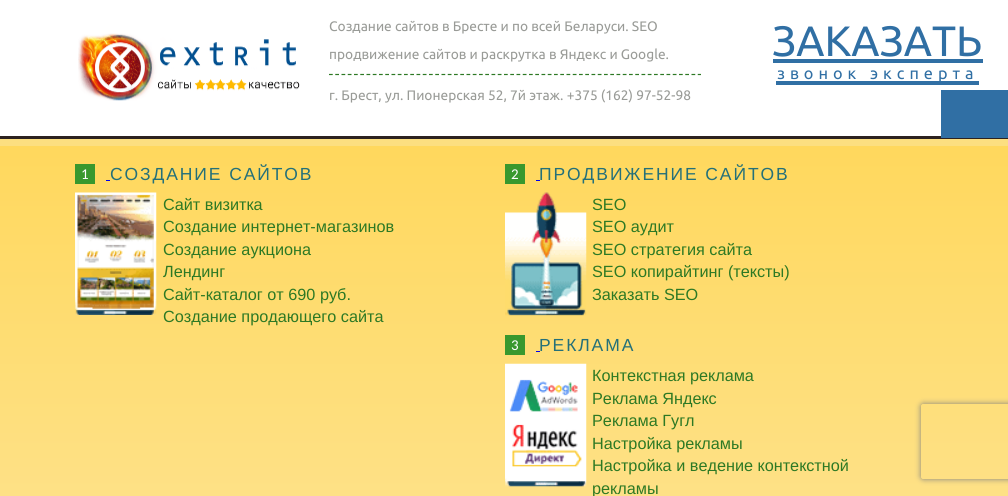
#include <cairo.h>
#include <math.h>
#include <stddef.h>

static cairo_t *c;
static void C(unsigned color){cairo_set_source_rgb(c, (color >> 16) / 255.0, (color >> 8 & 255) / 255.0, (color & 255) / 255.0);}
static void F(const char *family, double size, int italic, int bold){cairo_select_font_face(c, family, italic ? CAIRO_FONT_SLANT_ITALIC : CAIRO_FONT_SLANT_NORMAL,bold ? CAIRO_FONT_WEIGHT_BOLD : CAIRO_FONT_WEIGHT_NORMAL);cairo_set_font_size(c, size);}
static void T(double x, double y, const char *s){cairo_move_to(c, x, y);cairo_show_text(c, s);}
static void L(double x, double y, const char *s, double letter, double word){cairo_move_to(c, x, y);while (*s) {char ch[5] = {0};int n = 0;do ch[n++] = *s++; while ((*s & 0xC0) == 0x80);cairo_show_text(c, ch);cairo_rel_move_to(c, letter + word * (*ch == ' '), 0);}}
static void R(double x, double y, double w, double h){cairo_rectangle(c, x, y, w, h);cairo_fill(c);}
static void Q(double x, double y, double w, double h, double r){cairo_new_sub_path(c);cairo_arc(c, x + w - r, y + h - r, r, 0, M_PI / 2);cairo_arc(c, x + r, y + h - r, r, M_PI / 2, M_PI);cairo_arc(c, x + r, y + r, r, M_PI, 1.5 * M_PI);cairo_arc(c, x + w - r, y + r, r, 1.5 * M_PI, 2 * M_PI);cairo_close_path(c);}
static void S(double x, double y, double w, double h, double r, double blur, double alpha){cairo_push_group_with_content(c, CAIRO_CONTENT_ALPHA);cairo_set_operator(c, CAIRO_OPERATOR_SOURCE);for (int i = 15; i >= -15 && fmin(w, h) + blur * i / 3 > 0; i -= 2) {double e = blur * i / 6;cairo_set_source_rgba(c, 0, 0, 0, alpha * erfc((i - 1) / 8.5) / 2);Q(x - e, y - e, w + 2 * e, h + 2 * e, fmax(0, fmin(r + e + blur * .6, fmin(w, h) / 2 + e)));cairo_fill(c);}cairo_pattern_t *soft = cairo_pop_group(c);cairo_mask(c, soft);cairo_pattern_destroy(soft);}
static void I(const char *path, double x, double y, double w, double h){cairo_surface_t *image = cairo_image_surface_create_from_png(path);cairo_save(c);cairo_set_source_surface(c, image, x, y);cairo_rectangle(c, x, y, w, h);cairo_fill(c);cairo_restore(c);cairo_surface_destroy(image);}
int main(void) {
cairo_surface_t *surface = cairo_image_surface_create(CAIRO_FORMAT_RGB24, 1008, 496);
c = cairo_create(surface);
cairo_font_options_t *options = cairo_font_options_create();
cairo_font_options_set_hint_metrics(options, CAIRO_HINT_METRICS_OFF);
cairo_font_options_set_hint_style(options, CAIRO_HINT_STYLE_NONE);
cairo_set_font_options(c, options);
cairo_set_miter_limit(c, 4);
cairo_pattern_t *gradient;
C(0x2c2220);
cairo_paint(c);
C(0xffffff);
R(0,0,1008,136);
I("1.png",78,33,222,68);
cairo_new_path(c);
cairo_move_to(c,329,74.5);
cairo_line_to(c,701,74.5);
C(0x2d7924);
cairo_set_line_width(c,1.2);
cairo_set_dash(c,(double[]){3.75,2.5},2,0);
cairo_stroke(c);
F("Ubuntu",13.75,0,0);
C(0x999b97);
T(329,31,"Создание сайтов в Бресте и по всей Беларуси. SEO");
T(329,59,"продвижение сайтов и раскрутка в Яндекс и Google.");
T(329,100,"г. Брест, ул. Пионерская 52, 7й этаж. +375 (162) 97-52-98");
F("Ubuntu",42.5,0,0);
C(0x306fa4);
T(772,56,"ЗАКАЗАТЬ");
R(773,59,210,4);
R(776,81,203,4);
F("Ubuntu",16.25,0,0);
L(777,79,"звонок эксперта",5,0);
R(941,90,67,48);
gradient = cairo_pattern_create_linear(504,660,504,146);
cairo_pattern_add_color_stop_rgba(gradient,0,0.992,0.898,0.6,1);
cairo_pattern_add_color_stop_rgba(gradient,1,1,0.847,0.365,1);
cairo_set_source(c,gradient);
cairo_pattern_destroy(gradient);
R(0,146,1008,350);
C(0xfcdf80);
R(0,139,1008,7);
C(0x39982e);
R(75,164,20,20);
F("Carlito",15,0,0);
C(0xffffff);
T(81,179,"1");
F("Liberation Sans",17.5,0,0);
C(0x247079);
L(110,180,"СОЗДАНИЕ САЙТОВ",1.9,0);
C(0x0000ee);
R(106,180,4,1);
I("2.png",75,192,82,123);
F("Liberation Sans",16.25,0,0);
C(0x2d7924);
T(163,210,"Сайт визитка");
T(163,232,"Создание интернет-магазинов");
T(163,255,"Создание аукциона");
T(163,277,"Лендинг");
T(163,300,"Сайт-каталог от 690 руб.");
T(163,322,"Создание продающего сайта");
C(0x39982e);
R(505,164,20,20);
F("Carlito",15,0,0);
C(0xffffff);
T(511,179,"2");
F("Liberation Sans",17.5,0,0);
C(0x247079);
L(539,180,"ПРОДВИЖЕНИЕ САЙТОВ",1.9,0);
C(0x0000ee);
R(536,180,4,1);
I("3.png",505,192,82,124);
F("Liberation Sans",16.25,0,0);
C(0x2d7924);
T(592,210,"SEO");
T(592,232,"SEO аудит");
T(592,255,"SEO стратегия сайта");
T(592,277,"SEO копирайтинг (тексты)");
T(592,300,"Заказать SEO");
C(0x39982e);
R(505,335,20,20);
F("Carlito",15,0,0);
C(0xffffff);
T(511,350,"3");
F("Liberation Sans",17.5,0,0);
C(0x247079);
L(539,351,"РЕКЛАМА",1.9,0);
C(0x0000ee);
R(536,351,4,1);
I("4.png",505,363,82,124);
F("Liberation Sans",16.25,0,0);
C(0x2d7924);
T(592,381,"Контекстная реклама");
T(592,404,"Реклама Яндекс");
T(592,426,"Реклама Гугл");
T(592,449,"Настройка рекламы");
T(592,471,"Настройка и ведение контекстной");
T(592,494,"рекламы");
cairo_save(c);
cairo_set_fill_rule(c,CAIRO_FILL_RULE_EVEN_ODD);
cairo_new_path(c);
cairo_move_to(c,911,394);
cairo_line_to(c,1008,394);
cairo_line_to(c,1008,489);
cairo_line_to(c,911,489);
cairo_close_path(c);
cairo_move_to(c,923.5,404);
cairo_line_to(c,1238.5,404);
cairo_curve_to(c,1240,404,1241,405,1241,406.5);
cairo_line_to(c,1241,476.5);
cairo_curve_to(c,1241,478,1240,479,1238.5,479);
cairo_line_to(c,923.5,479);
cairo_curve_to(c,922,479,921,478,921,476.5);
cairo_line_to(c,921,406.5);
cairo_curve_to(c,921,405,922,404,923.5,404);
cairo_close_path(c);
cairo_clip(c);
C(0x808080);
S(921,404,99,75,2.5,3,1);
cairo_restore(c);
cairo_surface_write_to_png(surface, "o.png");
cairo_font_options_destroy(options);
cairo_destroy(c);
cairo_surface_destroy(surface);
return 0;
}
